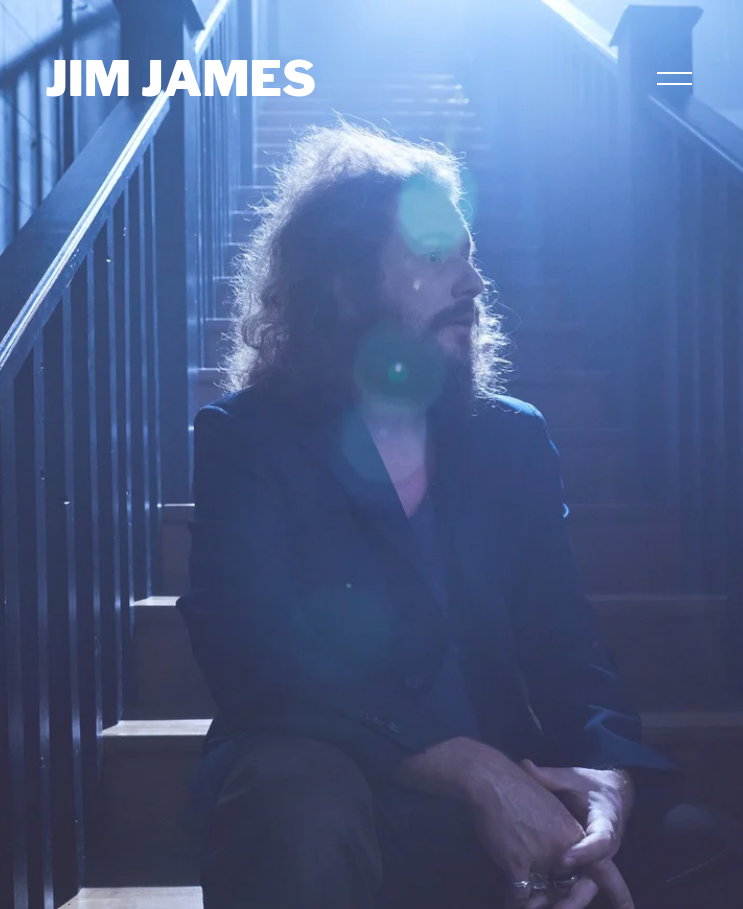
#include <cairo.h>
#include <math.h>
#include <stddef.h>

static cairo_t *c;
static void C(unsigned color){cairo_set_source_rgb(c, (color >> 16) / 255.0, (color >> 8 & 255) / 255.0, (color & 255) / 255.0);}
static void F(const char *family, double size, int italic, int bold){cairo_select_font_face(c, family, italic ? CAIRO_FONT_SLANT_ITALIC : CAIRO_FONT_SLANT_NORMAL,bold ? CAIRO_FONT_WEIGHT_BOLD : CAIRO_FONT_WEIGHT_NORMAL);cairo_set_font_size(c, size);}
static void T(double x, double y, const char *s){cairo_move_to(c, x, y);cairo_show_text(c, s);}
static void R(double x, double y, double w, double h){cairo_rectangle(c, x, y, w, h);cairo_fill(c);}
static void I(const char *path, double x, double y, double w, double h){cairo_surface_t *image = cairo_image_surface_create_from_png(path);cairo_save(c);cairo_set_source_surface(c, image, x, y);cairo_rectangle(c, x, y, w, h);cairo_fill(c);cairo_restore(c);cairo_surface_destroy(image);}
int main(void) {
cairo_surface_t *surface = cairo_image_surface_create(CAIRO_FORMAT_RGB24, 743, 909);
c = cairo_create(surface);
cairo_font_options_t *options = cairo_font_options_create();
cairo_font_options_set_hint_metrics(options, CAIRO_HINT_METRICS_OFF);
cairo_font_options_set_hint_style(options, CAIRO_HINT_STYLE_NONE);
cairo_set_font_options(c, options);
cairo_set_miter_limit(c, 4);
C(0xffffff);
cairo_paint(c);
I("1.png",0,0,743,909);
F("Libre Franklin Black",48.5,0,0);
C(0xffffff);
T(45,96,"JIM JAMES");
R(657,72,35,2);
R(657,83,35,2);
cairo_surface_write_to_png(surface, "o.png");
cairo_font_options_destroy(options);
cairo_destroy(c);
cairo_surface_destroy(surface);
return 0;
}
